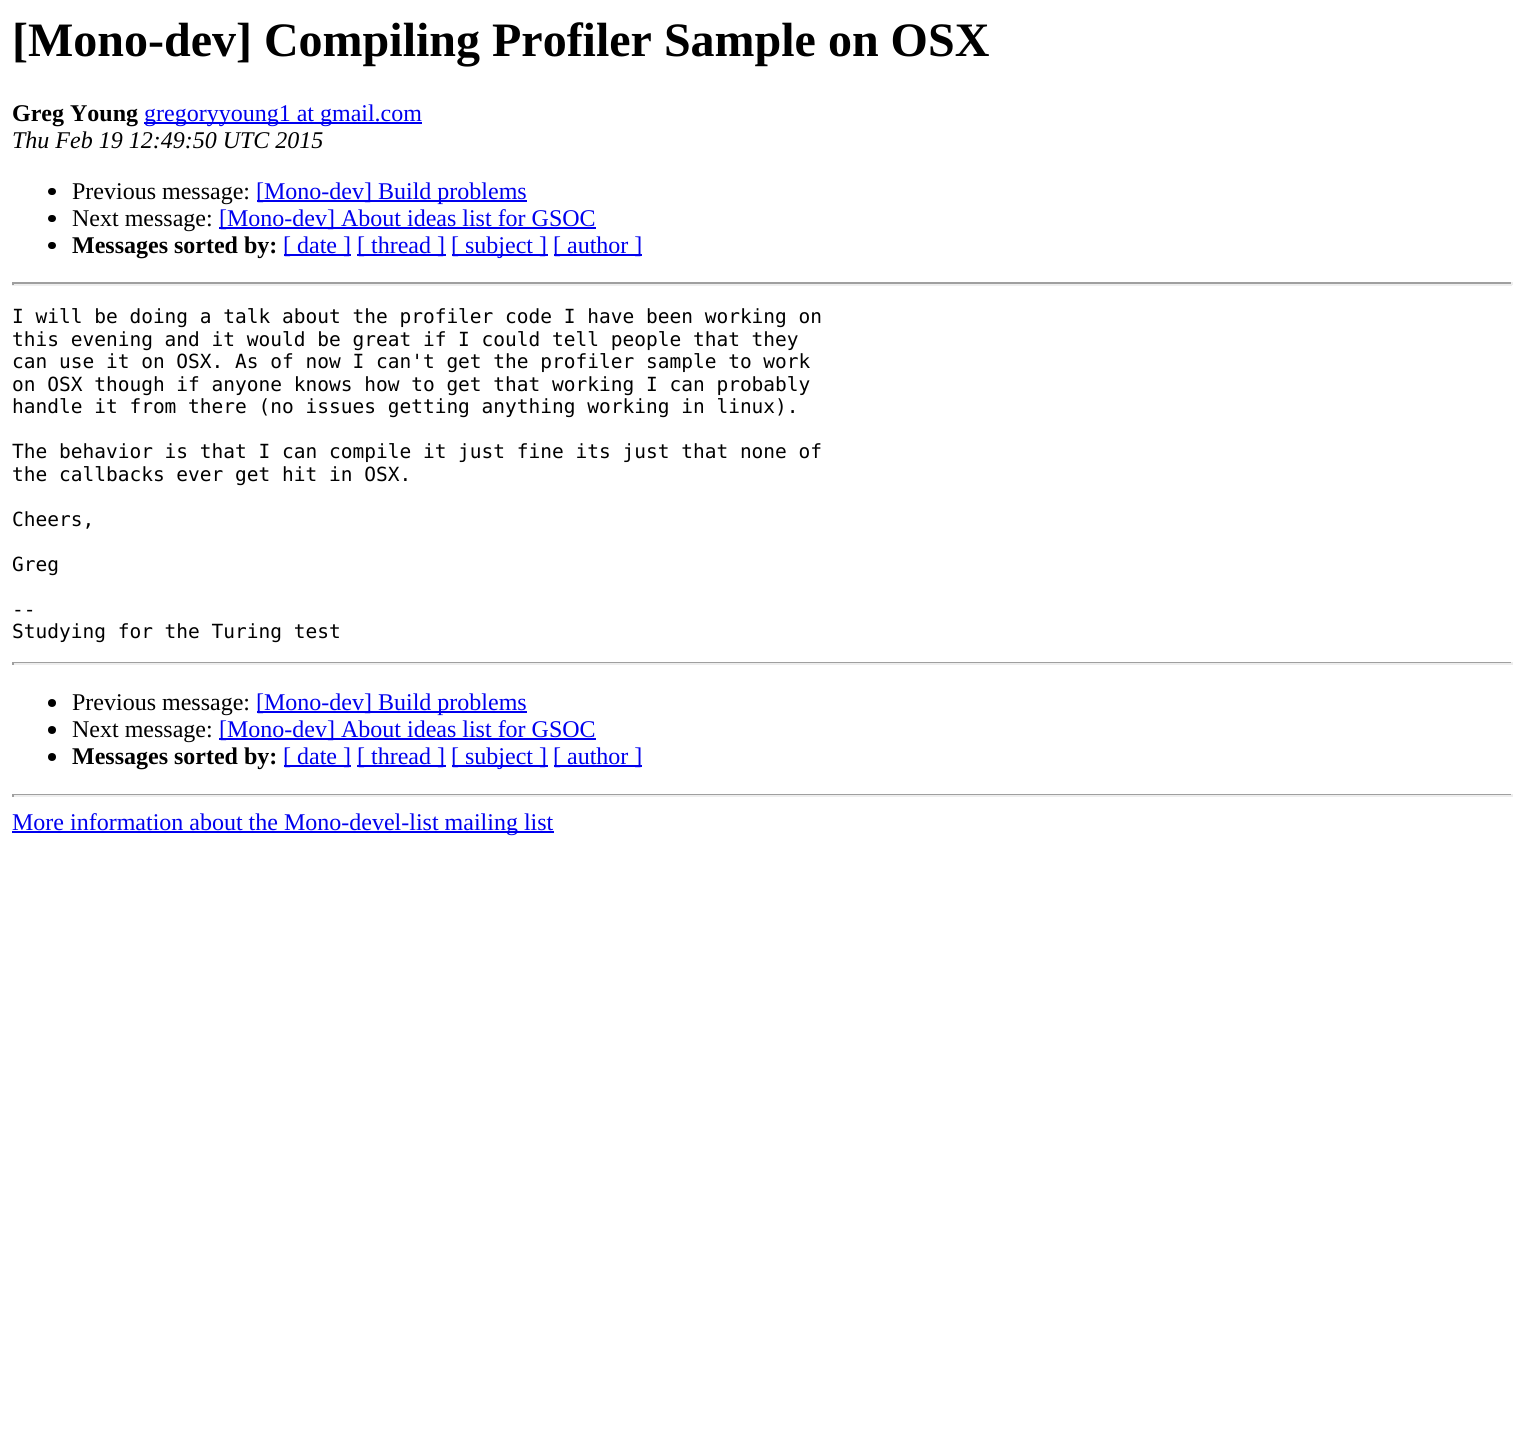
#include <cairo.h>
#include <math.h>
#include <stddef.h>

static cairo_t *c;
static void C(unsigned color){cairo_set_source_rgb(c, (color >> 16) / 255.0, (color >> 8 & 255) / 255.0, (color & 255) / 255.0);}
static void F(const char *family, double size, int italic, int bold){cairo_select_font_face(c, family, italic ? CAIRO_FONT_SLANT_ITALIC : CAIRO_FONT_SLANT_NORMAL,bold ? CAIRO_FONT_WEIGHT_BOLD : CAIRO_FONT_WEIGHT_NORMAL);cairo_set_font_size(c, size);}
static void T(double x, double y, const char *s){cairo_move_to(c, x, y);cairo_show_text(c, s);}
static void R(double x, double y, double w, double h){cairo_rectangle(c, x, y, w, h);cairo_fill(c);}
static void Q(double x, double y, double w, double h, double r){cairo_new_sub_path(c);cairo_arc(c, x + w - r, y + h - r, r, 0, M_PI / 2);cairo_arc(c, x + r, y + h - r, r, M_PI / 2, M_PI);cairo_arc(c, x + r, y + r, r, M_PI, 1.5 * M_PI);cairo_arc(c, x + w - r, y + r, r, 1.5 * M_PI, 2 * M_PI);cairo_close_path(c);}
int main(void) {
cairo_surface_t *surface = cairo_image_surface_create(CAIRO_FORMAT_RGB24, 1524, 1440);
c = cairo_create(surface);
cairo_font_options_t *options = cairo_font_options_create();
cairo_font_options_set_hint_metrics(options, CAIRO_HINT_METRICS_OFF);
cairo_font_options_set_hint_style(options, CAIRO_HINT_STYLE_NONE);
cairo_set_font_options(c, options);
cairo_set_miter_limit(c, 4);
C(0xffffff);
cairo_paint(c);
F("Liberation Serif",48,0,1);
C(0x000000);
T(12,56,"[Mono-dev] Compiling Profiler Sample on OSX");
F("Liberation Serif",24,0,1);
T(12,121,"Greg Young");
C(0x0000ee);
R(144,122,278,2);
F("Liberation Serif",24,0,0);
T(144,121,"gregoryyoung1 at gmail.com");
F("Liberation Serif",24,1,0);
C(0x000000);
T(12,148,"Thu Feb 19 12:49:50 UTC 2015");
Q(48,188,8,7,3.5);
cairo_fill(c);
F("Liberation Serif",24,0,0);
T(72,199,"Previous message:");
C(0x0000ee);
R(257,200,270,2);
T(256,199,"[Mono-dev] Build problems");
C(0x000000);
Q(48,215,8,7,3.5);
cairo_fill(c);
T(72,226,"Next message:");
C(0x0000ee);
R(219,227,377,2);
T(219,226,"[Mono-dev] About ideas list for GSOC");
C(0x000000);
Q(48,242,8,7,3.5);
cairo_fill(c);
F("Liberation Serif",24,0,1);
T(72,253,"Messages sorted by:");
C(0x0000ee);
R(284,254,67,2);
F("Liberation Serif",24,0,0);
T(283,253,"[ date ]");
R(357,254,89,2);
T(357,253,"[ thread ]");
R(452,254,96,2);
T(451,253,"[ subject ]");
R(554,254,88,2);
T(553,253,"[ author ]");
C(0x9f9f9f);
R(12,282,1500,2);
C(0xeeeeee);
R(1511,282,2,3);
R(12,284,1500,2);
C(0x9f9f9f);
R(12,282,2,3);
F("DejaVu Sans Mono",19.5,0,0);
C(0x000000);
T(12,323,"I will be doing a talk about the profiler code I have been working on");
T(12,346,"this evening and it would be great if I could tell people that they");
T(12,368,"can use it on OSX. As of now I can't get the profiler sample to work");
T(12,391,"on OSX though if anyone knows how to get that working I can probably");
T(12,413,"handle it from there (no issues getting anything working in linux).");
T(12,458,"The behavior is that I can compile it just fine its just that none of");
T(12,481,"the callbacks ever get hit in OSX.");
T(12,526,"Cheers,");
T(12,571,"Greg");
T(12,616,"--");
T(12,638,"Studying for the Turing test");
C(0x9f9f9f);
R(12,662,1500,1);
C(0xeeeeee);
R(1511,662,2,3);
R(12,663,1500,2);
C(0x9f9f9f);
R(12,662,2,3);
C(0x000000);
cairo_new_path(c);
cairo_arc(c,52,703,4,0,2 * M_PI);
cairo_fill(c);
F("Liberation Serif",24,0,0);
T(72,710,"Previous message:");
C(0x0000ee);
R(257,711,270,2);
T(256,710,"[Mono-dev] Build problems");
C(0x000000);
cairo_new_path(c);
cairo_arc(c,52,730,4,0,2 * M_PI);
cairo_fill(c);
T(72,737,"Next message:");
C(0x0000ee);
R(219,738,377,2);
T(219,737,"[Mono-dev] About ideas list for GSOC");
C(0x000000);
cairo_new_path(c);
cairo_arc(c,52,757,4,0,2 * M_PI);
cairo_fill(c);
F("Liberation Serif",24,0,1);
T(72,764,"Messages sorted by:");
C(0x0000ee);
R(284,765,67,2);
F("Liberation Serif",24,0,0);
T(283,764,"[ date ]");
R(357,765,89,2);
T(357,764,"[ thread ]");
R(452,765,96,2);
T(451,764,"[ subject ]");
R(554,765,88,2);
T(553,764,"[ author ]");
C(0x9f9f9f);
R(12,794,1500,1);
C(0xeeeeee);
R(1511,794,2,3);
R(12,795,1500,2);
C(0x9f9f9f);
R(12,794,2,3);
C(0x0000ee);
R(12,831,542,2);
T(12,830,"More information about the Mono-devel-list mailing list");
cairo_surface_write_to_png(surface, "o.png");
cairo_font_options_destroy(options);
cairo_destroy(c);
cairo_surface_destroy(surface);
return 0;
}
